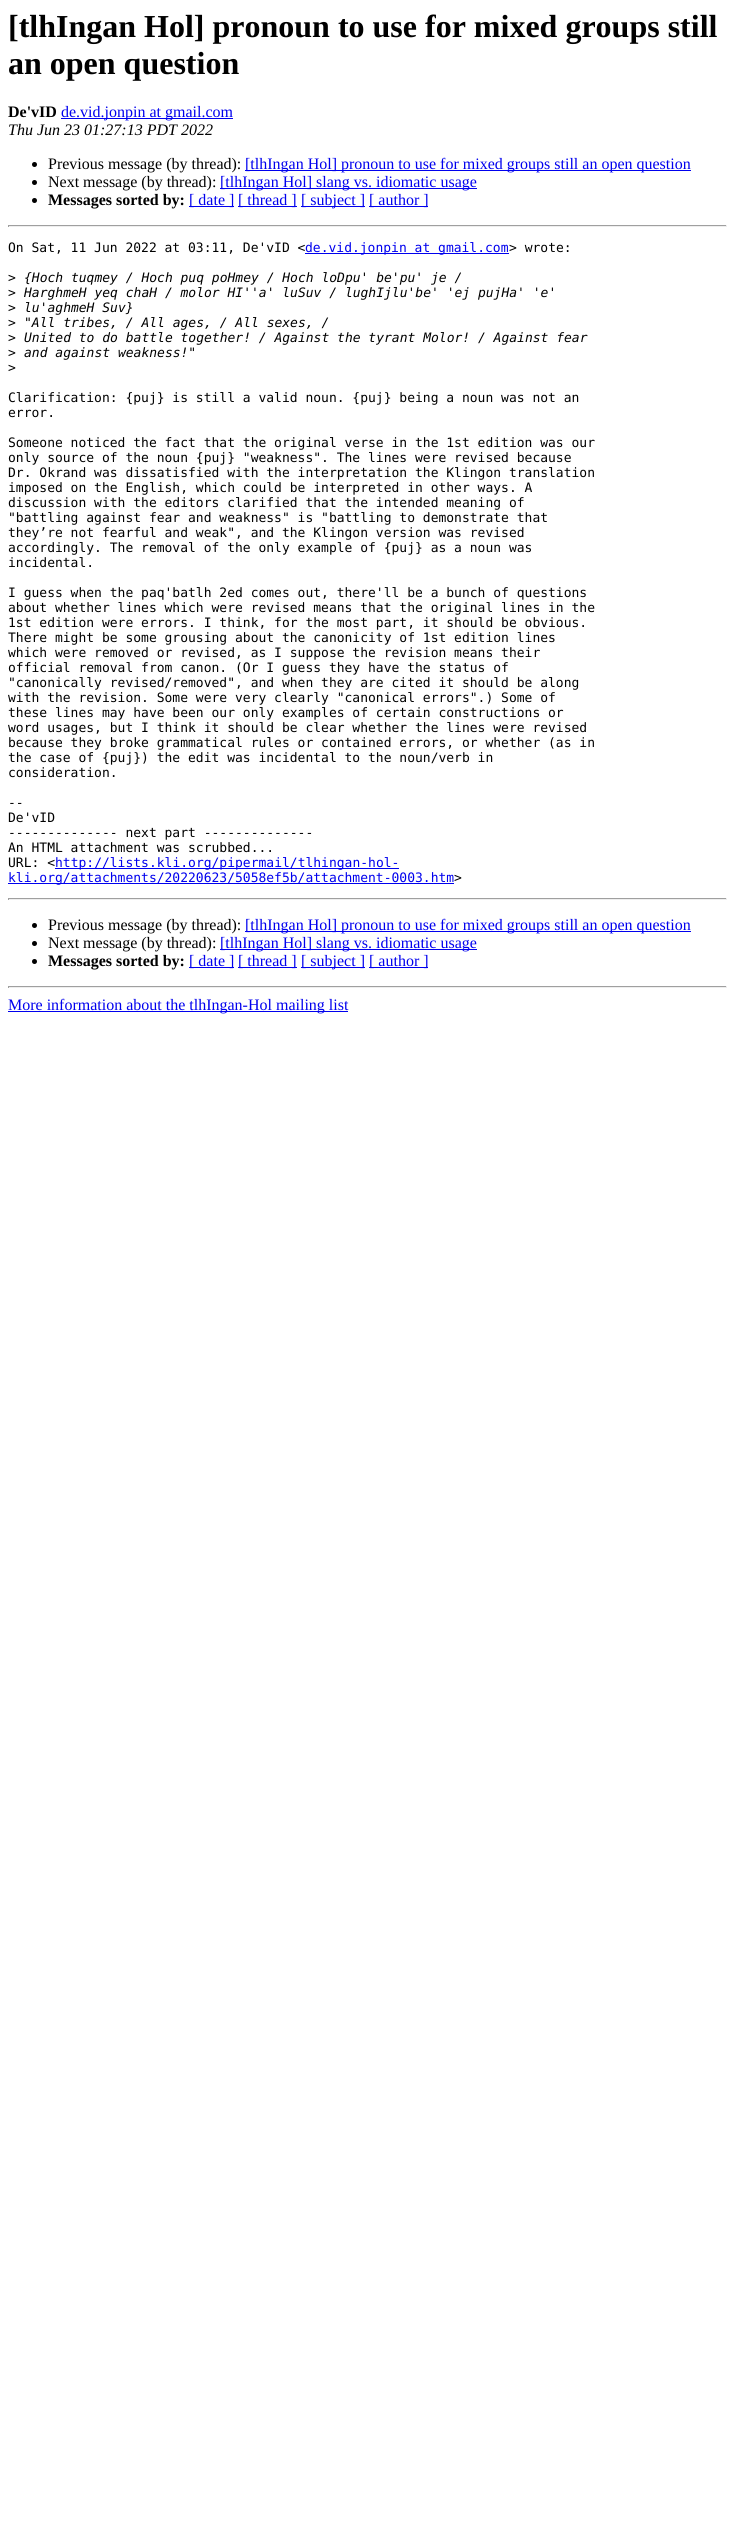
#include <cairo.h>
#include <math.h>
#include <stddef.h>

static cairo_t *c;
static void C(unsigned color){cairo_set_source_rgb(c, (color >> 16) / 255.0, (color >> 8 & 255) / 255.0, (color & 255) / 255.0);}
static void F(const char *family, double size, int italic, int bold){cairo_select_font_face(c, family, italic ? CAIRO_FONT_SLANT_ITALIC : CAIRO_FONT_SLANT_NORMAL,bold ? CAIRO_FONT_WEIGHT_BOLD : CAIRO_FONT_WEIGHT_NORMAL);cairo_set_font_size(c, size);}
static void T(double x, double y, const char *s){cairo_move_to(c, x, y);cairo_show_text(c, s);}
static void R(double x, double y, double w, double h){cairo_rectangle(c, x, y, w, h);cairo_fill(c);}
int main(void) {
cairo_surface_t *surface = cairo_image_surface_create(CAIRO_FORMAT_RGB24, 735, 2536);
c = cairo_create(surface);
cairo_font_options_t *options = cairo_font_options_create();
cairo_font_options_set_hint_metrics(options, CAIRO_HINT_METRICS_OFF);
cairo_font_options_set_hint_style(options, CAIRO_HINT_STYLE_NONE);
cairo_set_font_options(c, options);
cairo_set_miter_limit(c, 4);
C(0xffffff);
cairo_paint(c);
F("Liberation Serif",32,0,1);
C(0x000000);
T(8,37,"[tlhIngan Hol] pronoun to use for mixed groups still");
T(8,74,"an open question");
F("Liberation Serif",16,0,1);
T(8,117,"De'vID");
C(0x0000ee);
R(61,118,172,1);
F("Liberation Serif",16,0,0);
T(61,117,"de.vid.jonpin at gmail.com");
F("Liberation Serif",16,1,0);
C(0x000000);
T(8,135,"Thu Jun 23 01:27:13 PDT 2022");
cairo_new_path(c);
cairo_arc(c,34.5,164.5,2.5,0,2 * M_PI);
cairo_fill(c);
F("Liberation Serif",16,0,0);
T(48,169,"Previous message (by thread):");
C(0x0000ee);
R(245,170,446,1);
T(245,169,"[tlhIngan Hol] pronoun to use for mixed groups still an open question");
C(0x000000);
cairo_new_path(c);
cairo_arc(c,34.5,182.5,2.5,0,2 * M_PI);
cairo_fill(c);
T(48,187,"Next message (by thread):");
C(0x0000ee);
R(220,188,257,1);
T(220,187,"[tlhIngan Hol] slang vs. idiomatic usage");
C(0x000000);
cairo_new_path(c);
cairo_arc(c,34.5,200.5,2.5,0,2 * M_PI);
cairo_fill(c);
F("Liberation Serif",16,0,1);
T(48,205,"Messages sorted by:");
C(0x0000ee);
R(189,206,45,1);
F("Liberation Serif",16,0,0);
T(189,205,"[ date ]");
R(238,206,59,1);
T(238,205,"[ thread ]");
R(301,206,64,1);
T(301,205,"[ subject ]");
R(369,206,59,1);
T(369,205,"[ author ]");
C(0x9f9f9f);
R(8,225,719,1);
C(0xeeeeee);
R(726,225,1,2);
R(8,226,719,1);
C(0x9f9f9f);
R(8,225,1,2);
F("DejaVu Sans Mono",13,0,0);
C(0x000000);
T(8,252,"On Sat, 11 Jun 2022 at 03:11, De'vID <");
C(0x0000ee);
R(305,253,204,1);
T(305,252,"de.vid.jonpin at gmail.com");
C(0x000000);
T(509,252,"> wrote:");
T(8,282,">");
F("DejaVu Sans Mono",13,1,0);
T(24,282,"{Hoch tuqmey / Hoch puq poHmey / Hoch loDpu' be'pu' je /");
F("DejaVu Sans Mono",13,0,0);
T(8,297,">");
F("DejaVu Sans Mono",13,1,0);
T(24,297,"HarghmeH yeq chaH / molor HI''a' luSuv / lughIjlu'be' 'ej pujHa' 'e'");
F("DejaVu Sans Mono",13,0,0);
T(8,312,">");
F("DejaVu Sans Mono",13,1,0);
T(24,312,"lu'aghmeH Suv}");
F("DejaVu Sans Mono",13,0,0);
T(8,327,">");
F("DejaVu Sans Mono",13,1,0);
T(24,327,"\"All tribes, / All ages, / All sexes, /");
F("DejaVu Sans Mono",13,0,0);
T(8,342,">");
F("DejaVu Sans Mono",13,1,0);
T(24,342,"United to do battle together! / Against the tyrant Molor! / Against fear");
F("DejaVu Sans Mono",13,0,0);
T(8,357,">");
F("DejaVu Sans Mono",13,1,0);
T(24,357,"and against weakness!\"");
F("DejaVu Sans Mono",13,0,0);
T(8,372,">");
T(8,402,"Clarification: {puj} is still a valid noun. {puj} being a noun was not an");
T(8,417,"error.");
T(8,447,"Someone noticed the fact that the original verse in the 1st edition was our");
T(8,462,"only source of the noun {puj} \"weakness\". The lines were revised because");
T(8,477,"Dr. Okrand was dissatisfied with the interpretation the Klingon translation");
T(8,492,"imposed on the English, which could be interpreted in other ways. A");
T(8,507,"discussion with the editors clarified that the intended meaning of");
T(8,522,"\"battling against fear and weakness\" is \"battling to demonstrate that");
T(8,537,"they’re not fearful and weak\", and the Klingon version was revised");
T(8,552,"accordingly. The removal of the only example of {puj} as a noun was");
T(8,567,"incidental.");
T(8,597,"I guess when the paq'batlh 2ed comes out, there'll be a bunch of questions");
T(8,612,"about whether lines which were revised means that the original lines in the");
T(8,627,"1st edition were errors. I think, for the most part, it should be obvious.");
T(8,642,"There might be some grousing about the canonicity of 1st edition lines");
T(8,657,"which were removed or revised, as I suppose the revision means their");
T(8,672,"official removal from canon. (Or I guess they have the status of");
T(8,687,"\"canonically revised/removed\", and when they are cited it should be along");
T(8,702,"with the revision. Some were very clearly \"canonical errors\".) Some of");
T(8,717,"these lines may have been our only examples of certain constructions or");
T(8,732,"word usages, but I think it should be clear whether the lines were revised");
T(8,747,"because they broke grammatical rules or contained errors, or whether (as in");
T(8,762,"the case of {puj}) the edit was incidental to the noun/verb in");
T(8,777,"consideration.");
T(8,807,"--");
T(8,822,"De'vID");
T(8,837,"-------------- next part --------------");
T(8,852,"An HTML attachment was scrubbed...");
T(8,867,"URL: <");
C(0x0000ee);
R(55,868,344,1);
T(55,867,"http://lists.kli.org/pipermail/tlhingan-hol-");
R(8,883,446,1);
T(8,882,"kli.org/attachments/20220623/5058ef5b/attachment-0003.htm");
C(0x000000);
T(454,882,">");
C(0x9f9f9f);
R(8,898,719,1);
C(0xeeeeee);
R(726,898,1,2);
R(8,899,719,1);
C(0x9f9f9f);
R(8,898,1,2);
C(0x000000);
cairo_new_path(c);
cairo_arc(c,34.5,925.5,2.5,0,2 * M_PI);
cairo_fill(c);
F("Liberation Serif",16,0,0);
T(48,930,"Previous message (by thread):");
C(0x0000ee);
R(245,931,446,1);
T(245,930,"[tlhIngan Hol] pronoun to use for mixed groups still an open question");
C(0x000000);
cairo_new_path(c);
cairo_arc(c,34.5,943.5,2.5,0,2 * M_PI);
cairo_fill(c);
T(48,948,"Next message (by thread):");
C(0x0000ee);
R(220,949,257,1);
T(220,948,"[tlhIngan Hol] slang vs. idiomatic usage");
C(0x000000);
cairo_new_path(c);
cairo_arc(c,34.5,961.5,2.5,0,2 * M_PI);
cairo_fill(c);
F("Liberation Serif",16,0,1);
T(48,966,"Messages sorted by:");
C(0x0000ee);
R(189,967,45,1);
F("Liberation Serif",16,0,0);
T(189,966,"[ date ]");
R(238,967,59,1);
T(238,966,"[ thread ]");
R(301,967,64,1);
T(301,966,"[ subject ]");
R(369,967,59,1);
T(369,966,"[ author ]");
C(0x9f9f9f);
R(8,986,719,1);
C(0xeeeeee);
R(726,986,1,2);
R(8,987,719,1);
C(0x9f9f9f);
R(8,986,1,2);
C(0x0000ee);
R(8,1011,340,1);
T(8,1010,"More information about the tlhIngan-Hol mailing list");
cairo_surface_write_to_png(surface, "o.png");
cairo_font_options_destroy(options);
cairo_destroy(c);
cairo_surface_destroy(surface);
return 0;
}
